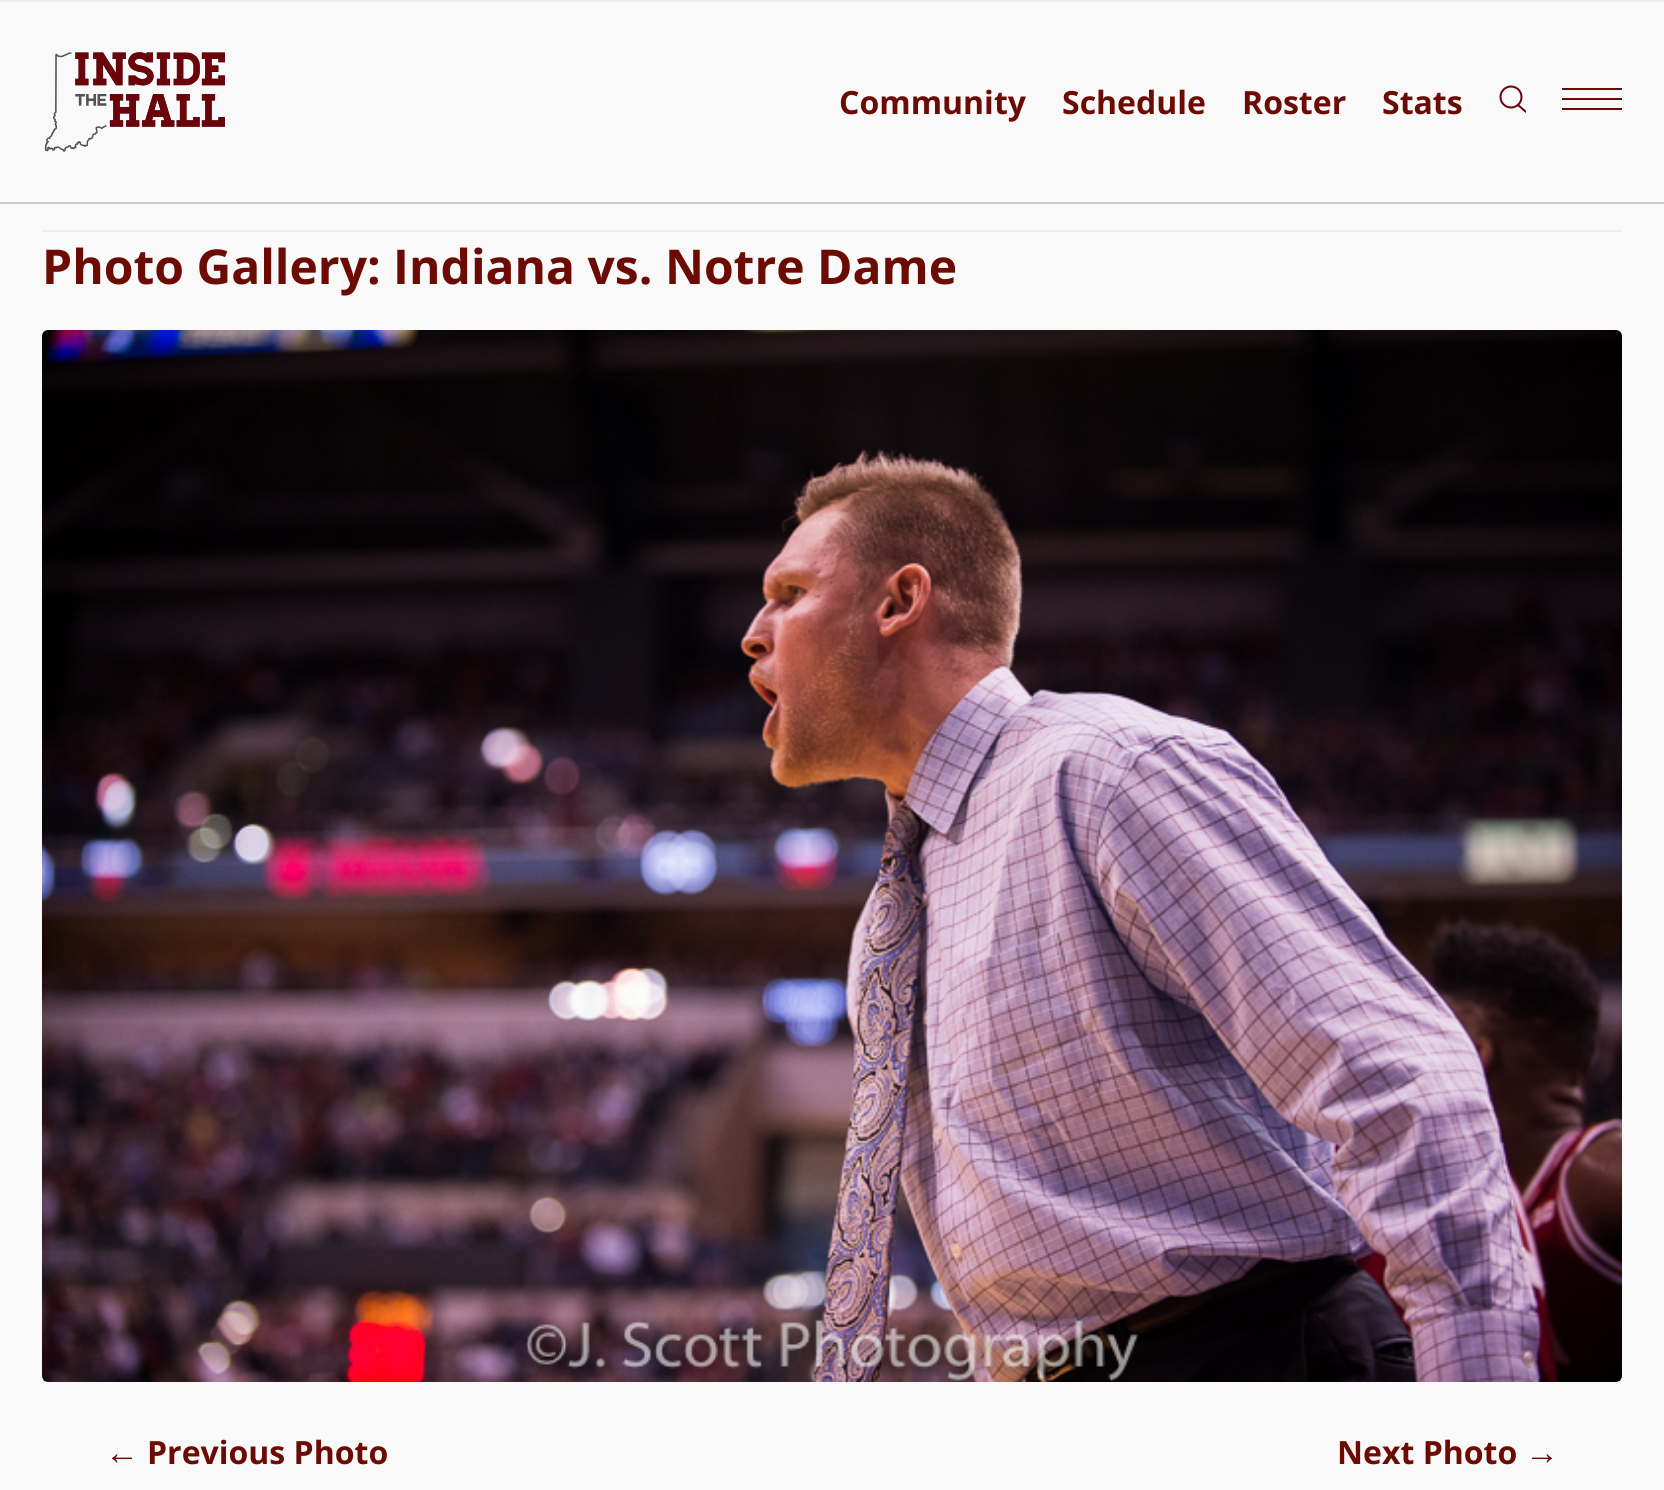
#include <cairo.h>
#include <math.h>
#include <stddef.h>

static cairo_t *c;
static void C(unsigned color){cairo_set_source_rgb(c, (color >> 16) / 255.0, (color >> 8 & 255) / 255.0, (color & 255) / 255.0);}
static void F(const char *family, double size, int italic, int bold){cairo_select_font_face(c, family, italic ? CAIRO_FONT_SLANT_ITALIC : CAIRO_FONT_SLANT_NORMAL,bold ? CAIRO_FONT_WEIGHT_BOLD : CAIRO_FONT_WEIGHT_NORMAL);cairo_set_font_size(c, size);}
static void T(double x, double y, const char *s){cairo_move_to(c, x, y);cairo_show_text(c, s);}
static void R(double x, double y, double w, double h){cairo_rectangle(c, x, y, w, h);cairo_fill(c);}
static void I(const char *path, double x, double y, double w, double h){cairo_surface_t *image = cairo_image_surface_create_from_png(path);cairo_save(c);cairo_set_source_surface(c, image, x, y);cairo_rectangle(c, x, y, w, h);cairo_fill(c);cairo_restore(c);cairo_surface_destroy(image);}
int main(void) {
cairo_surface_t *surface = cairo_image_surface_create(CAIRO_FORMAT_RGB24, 1664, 1490);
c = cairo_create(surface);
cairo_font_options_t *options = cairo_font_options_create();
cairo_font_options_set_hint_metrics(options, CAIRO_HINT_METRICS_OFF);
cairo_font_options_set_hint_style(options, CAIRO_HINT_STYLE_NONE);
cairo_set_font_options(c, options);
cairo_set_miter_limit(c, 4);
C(0xf9f9f9);
cairo_paint(c);
C(0xefefef);
R(0,0,1664,2);
C(0xcccccc);
R(0,202,1664,2);
I("1.png",44,52,181,100);
F("Open Sans",32,0,1);
C(0x6b0b03);
T(839,114,"Community");
T(1062,114,"Schedule");
T(1242,114,"Roster");
T(1382,114,"Stats");
cairo_new_path(c);
cairo_arc(c,1511,97,10.5,0,2 * M_PI);
C(0x6b030b);
cairo_stroke(c);
cairo_save(c);
cairo_rectangle(c,1498,84,28,30);
cairo_clip(c);
cairo_new_path(c);
cairo_move_to(c,1518,105);
cairo_line_to(c,1525.5,111.5);
cairo_set_line_cap(c,CAIRO_LINE_CAP_SQUARE);
cairo_stroke(c);
cairo_restore(c);
C(0x6b0b03);
R(1562,88,60,2);
R(1562,98,60,2);
R(1562,108,60,2);
C(0xefefef);
R(42,230,1580,2);
F("Open Sans",48,0,1);
C(0x6b0b03);
T(42,284,"Photo Gallery: Indiana vs. Notre Dame");
I("2.png",42,330,1580,1052);
F("Liberation Sans",34,0,1);
T(105,1464,"←");
F("Open Sans",32,0,1);
T(147,1464,"Previous Photo");
T(1337,1464,"Next Photo");
F("Liberation Sans",34,0,1);
T(1525,1464,"→");
cairo_surface_write_to_png(surface, "o.png");
cairo_font_options_destroy(options);
cairo_destroy(c);
cairo_surface_destroy(surface);
return 0;
}
